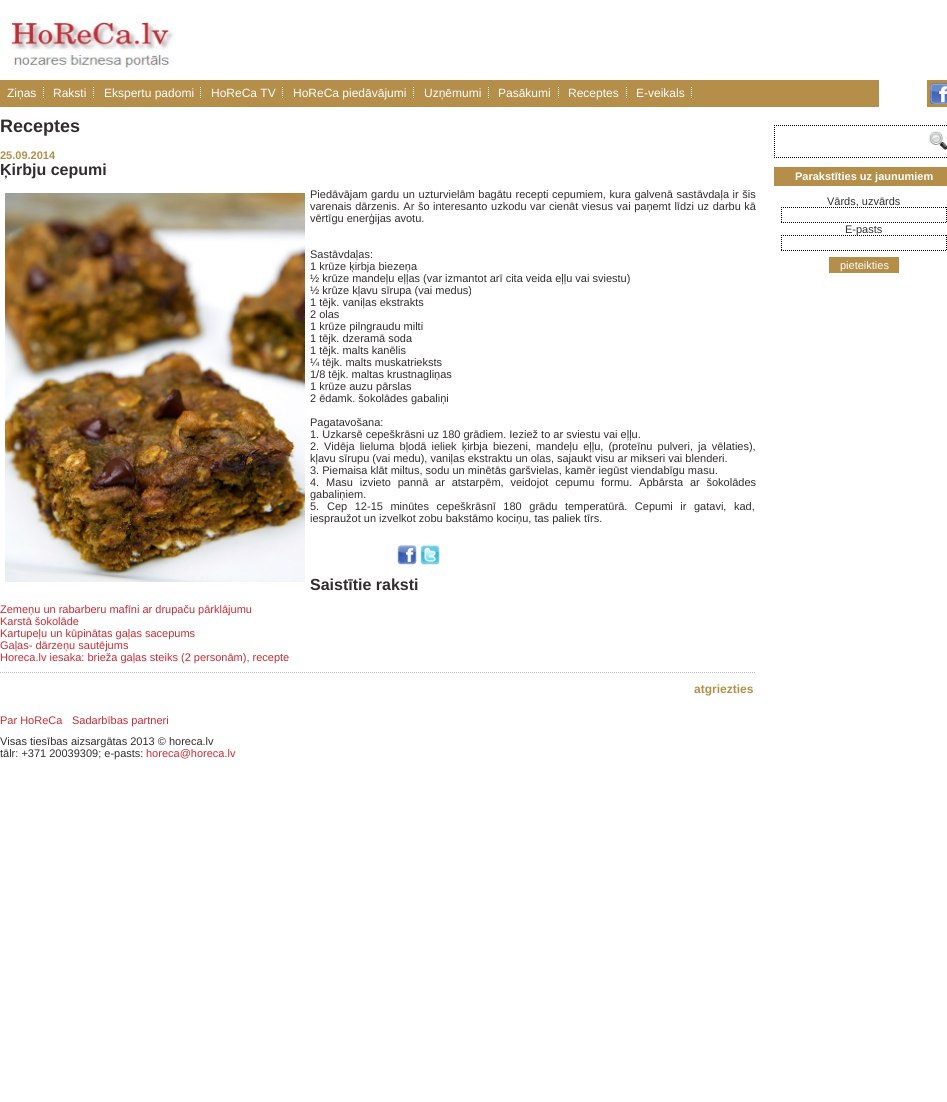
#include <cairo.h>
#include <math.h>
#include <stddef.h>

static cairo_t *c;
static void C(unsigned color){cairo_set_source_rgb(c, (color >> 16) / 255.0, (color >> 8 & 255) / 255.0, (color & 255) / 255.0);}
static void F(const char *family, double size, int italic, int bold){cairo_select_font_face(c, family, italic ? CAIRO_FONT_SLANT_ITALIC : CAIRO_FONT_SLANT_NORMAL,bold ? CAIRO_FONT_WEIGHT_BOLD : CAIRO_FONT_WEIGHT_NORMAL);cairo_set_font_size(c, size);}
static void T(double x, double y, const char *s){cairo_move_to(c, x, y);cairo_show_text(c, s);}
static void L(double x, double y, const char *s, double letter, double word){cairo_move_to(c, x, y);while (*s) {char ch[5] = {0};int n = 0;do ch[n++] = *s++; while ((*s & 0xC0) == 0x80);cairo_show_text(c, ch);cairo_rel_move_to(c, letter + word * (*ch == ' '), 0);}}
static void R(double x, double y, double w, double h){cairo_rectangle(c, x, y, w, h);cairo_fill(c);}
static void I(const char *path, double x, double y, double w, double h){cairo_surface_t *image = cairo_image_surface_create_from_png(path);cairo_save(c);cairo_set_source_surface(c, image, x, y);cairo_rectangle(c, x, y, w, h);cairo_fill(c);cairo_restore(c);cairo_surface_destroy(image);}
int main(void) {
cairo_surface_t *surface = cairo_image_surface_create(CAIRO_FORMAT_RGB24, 947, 1102);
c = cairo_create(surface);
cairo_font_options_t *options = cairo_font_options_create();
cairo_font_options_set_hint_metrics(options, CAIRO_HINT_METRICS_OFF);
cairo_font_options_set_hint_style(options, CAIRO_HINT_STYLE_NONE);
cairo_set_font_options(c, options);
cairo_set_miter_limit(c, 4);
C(0xffffff);
cairo_paint(c);
I("1.png",0,14,175,57);
C(0xb58e49);
R(0,80,879,27);
F("Liberation Sans",12,0,0);
C(0xffffff);
T(7,97,"Ziņas");
cairo_new_path(c);
cairo_move_to(c,43.5,87);
cairo_line_to(c,43.5,99);
cairo_set_line_width(c,1);
cairo_set_dash(c,(double[]){1,1},2,0);
cairo_stroke(c);
T(53,97,"Raksti");
cairo_new_path(c);
cairo_move_to(c,93.5,87);
cairo_line_to(c,93.5,99);
cairo_stroke(c);
T(104,97,"Ekspertu padomi");
cairo_new_path(c);
cairo_move_to(c,200.5,87);
cairo_line_to(c,200.5,99);
cairo_stroke(c);
T(211,97,"HoReCa TV");
cairo_new_path(c);
cairo_move_to(c,282.5,87);
cairo_line_to(c,282.5,99);
cairo_stroke(c);
T(293,97,"HoReCa piedāvājumi");
cairo_new_path(c);
cairo_move_to(c,413.5,87);
cairo_line_to(c,413.5,99);
cairo_stroke(c);
T(424,97,"Uzņēmumi");
cairo_new_path(c);
cairo_move_to(c,488.5,87);
cairo_line_to(c,488.5,99);
cairo_stroke(c);
T(498,97,"Pasākumi");
cairo_new_path(c);
cairo_move_to(c,558.5,87);
cairo_line_to(c,558.5,99);
cairo_stroke(c);
T(568,97,"Receptes");
cairo_new_path(c);
cairo_move_to(c,626.5,87);
cairo_line_to(c,626.5,99);
cairo_stroke(c);
T(636,97,"E-veikals");
cairo_new_path(c);
cairo_move_to(c,691.5,87);
cairo_line_to(c,691.5,99);
cairo_stroke(c);
C(0xb58e49);
R(927,80,20,27);
I("2.png",930,83,17,21);
F("Liberation Sans",18,0,1);
C(0x312d2d);
T(0,132,"Receptes");
F("Liberation Sans",11,0,1);
C(0xb58e49);
T(0,159,"25.09.2014");
F("Liberation Sans",16,0,1);
C(0x312d2d);
T(0,175,"Ķirbju cepumi");
I("3.png",5,193,300,389);
F("Liberation Sans",11,0,0);
L(310,198,"Piedāvājam gardu un uzturvielām bagātu recepti cepumiem, kura galvenā sastāvdaļa ir šis",0,.5);
L(310,210,"varenais dārzenis. Ar šo interesanto uzkodu var cienāt viesus vai paņemt līdzi uz darbu kā",0,.5);
T(310,222,"vērtīgu enerģijas avotu.");
T(310,258,"Sastāvdaļas:");
T(310,270,"1 krūze ķirbja biezeņa");
T(310,282,"½ krūze mandeļu eļļas (var izmantot arī cita veida eļļu vai sviestu)");
T(310,294,"½ krūze kļavu sīrupa (vai medus)");
T(310,306,"1 tējk. vaniļas ekstrakts");
T(310,318,"2 olas");
T(310,330,"1 krūze pilngraudu milti");
T(310,342,"1 tējk. dzeramā soda");
T(310,354,"1 tējk. malts kanēlis");
T(310,366,"¼ tējk. malts muskatrieksts");
T(310,378,"1/8 tējk. maltas krustnagliņas");
T(310,390,"1 krūze auzu pārslas");
T(310,402,"2 ēdamk. šokolādes gabaliņi");
T(310,426,"Pagatavošana:");
T(310,438,"1. Uzkarsē cepeškrāsni uz 180 grādiem. Ieziež to ar sviestu vai eļļu.");
T(310,450,"2.");
L(324,450,"Vidēja lieluma bļodā ieliek ķirbja biezeni, mandeļu eļļu, (proteīnu pulveri, ja vēlaties),",0,2);
T(310,462,"kļavu sīrupu (vai medu), vaniļas ekstraktu un olas, sajaukt visu ar mikseri vai blenderi.");
T(310,474,"3. Piemaisa klāt miltus, sodu un minētās garšvielas, kamēr iegūst viendabīgu masu.");
T(310,486,"4.");
L(326,486,"Masu izvieto pannā ar atstarpēm, veidojot cepumu formu. Apbārsta ar šokolādes",0,3.75);
T(310,498,"gabaliņiem.");
T(310,510,"5.");
L(327,510,"Cep 12-15 minūtes cepeškrāsnī 180 grādu temperatūrā. Cepumi ir gatavi, kad,",0,4.5);
T(310,522,"iespraužot un izvelkot zobu bakstāmo kociņu, tas paliek tīrs.");
I("4.png",397,545,20,20);
I("5.png",420,545,20,20);
F("Liberation Sans",16,0,1);
T(310,590,"Saistītie raksti");
F("Liberation Sans",11,0,0);
C(0xc72c34);
T(0,613,"Zemeņu un rabarberu mafīni ar drupaču pārklājumu");
T(0,625,"Karstā šokolāde");
T(0,637,"Kartupeļu un kūpinātas gaļas sacepums");
T(0,649,"Gaļas- dārzeņu sautējums");
T(0,661,"Horeca.lv iesaka: brieža gaļas steiks (2 personām), recepte");
cairo_new_path(c);
cairo_move_to(c,0,672.5);
cairo_line_to(c,756,672.5);
C(0xbfbfbf);
cairo_stroke(c);
F("Liberation Sans",12,0,1);
C(0xb58e49);
T(694,693,"atgriezties");
cairo_new_path(c);
cairo_move_to(c,774,125.5);
cairo_line_to(c,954,125.5);
C(0x000000);
cairo_stroke(c);
cairo_new_path(c);
cairo_move_to(c,774,157.5);
cairo_line_to(c,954,157.5);
cairo_stroke(c);
cairo_new_path(c);
cairo_move_to(c,774.5,125);
cairo_line_to(c,774.5,158);
cairo_stroke(c);
I("6.png",929,131,18,19);
C(0xb58e49);
R(774,167,173,19);
F("Liberation Sans",11,0,1);
C(0xffffff);
T(795,180,"Parakstīties uz jaunumiem");
F("Liberation Sans",11,0,0);
C(0x312d2d);
T(827,205,"Vārds, uzvārds");
cairo_new_path(c);
cairo_move_to(c,781,207.5);
cairo_line_to(c,947,207.5);
C(0x000000);
cairo_stroke(c);
cairo_new_path(c);
cairo_move_to(c,946.5,207);
cairo_line_to(c,946.5,223);
cairo_stroke(c);
cairo_new_path(c);
cairo_move_to(c,781,222.5);
cairo_line_to(c,947,222.5);
cairo_stroke(c);
cairo_new_path(c);
cairo_move_to(c,781.5,207);
cairo_line_to(c,781.5,223);
cairo_stroke(c);
C(0x312d2d);
T(845,233,"E-pasts");
C(0xffffff);
R(857,235,1,1);
cairo_new_path(c);
cairo_move_to(c,781,235.5);
cairo_line_to(c,947,235.5);
C(0x000000);
cairo_stroke(c);
cairo_new_path(c);
cairo_move_to(c,946.5,235);
cairo_line_to(c,946.5,251);
cairo_stroke(c);
cairo_new_path(c);
cairo_move_to(c,781,250.5);
cairo_line_to(c,947,250.5);
cairo_stroke(c);
cairo_new_path(c);
cairo_move_to(c,781.5,235);
cairo_line_to(c,781.5,251);
cairo_stroke(c);
C(0xb58e49);
R(829,257,70,16);
C(0xffffff);
T(840,269,"pieteikties");
C(0xc72c34);
T(0,724,"Par HoReCa");
T(72,724,"Sadarbības partneri");
C(0x312d2d);
T(0,745,"Visas tiesības aizsargātas 2013 © horeca.lv");
T(0,757,"tālr: +371 20039309; e-pasts:");
C(0xc72c34);
T(146,757,"horeca@horeca.lv");
cairo_surface_write_to_png(surface, "o.png");
cairo_font_options_destroy(options);
cairo_destroy(c);
cairo_surface_destroy(surface);
return 0;
}
